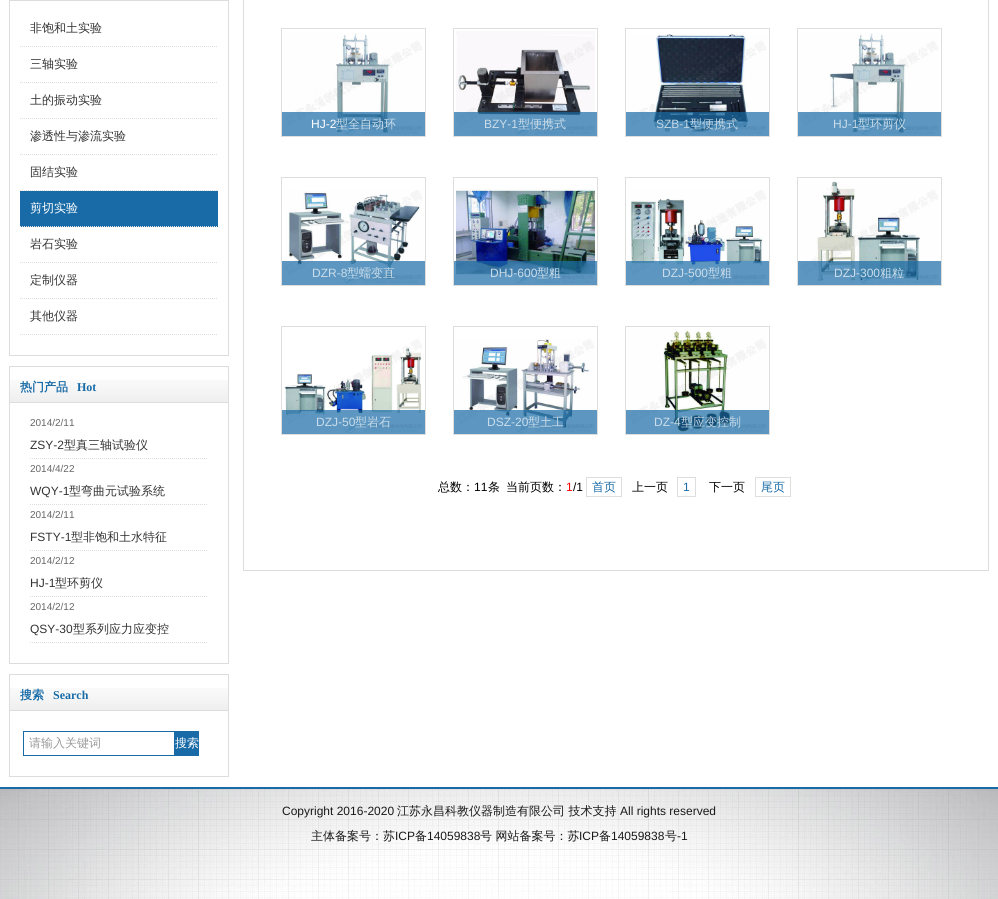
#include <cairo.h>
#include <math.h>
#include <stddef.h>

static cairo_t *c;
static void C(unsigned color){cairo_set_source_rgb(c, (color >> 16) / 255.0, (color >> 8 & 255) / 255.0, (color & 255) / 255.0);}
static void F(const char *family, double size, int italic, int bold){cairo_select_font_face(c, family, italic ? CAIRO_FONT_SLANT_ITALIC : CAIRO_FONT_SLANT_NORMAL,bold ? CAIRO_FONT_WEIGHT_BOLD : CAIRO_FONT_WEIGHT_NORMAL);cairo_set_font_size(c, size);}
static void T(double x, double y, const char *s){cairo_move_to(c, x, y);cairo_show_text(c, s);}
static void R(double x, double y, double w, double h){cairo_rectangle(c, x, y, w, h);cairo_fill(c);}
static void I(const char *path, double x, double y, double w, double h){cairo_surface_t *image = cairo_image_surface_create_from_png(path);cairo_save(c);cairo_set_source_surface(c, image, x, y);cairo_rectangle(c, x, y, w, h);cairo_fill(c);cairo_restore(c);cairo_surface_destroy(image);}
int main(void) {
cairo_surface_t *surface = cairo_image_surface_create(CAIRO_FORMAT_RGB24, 998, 899);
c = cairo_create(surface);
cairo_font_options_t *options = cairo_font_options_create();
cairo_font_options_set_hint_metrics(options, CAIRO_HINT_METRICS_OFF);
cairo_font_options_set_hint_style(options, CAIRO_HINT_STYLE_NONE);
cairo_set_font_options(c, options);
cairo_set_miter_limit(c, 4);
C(0xffffff);
cairo_paint(c);
cairo_rectangle(c,9.5,-.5,219,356);
C(0xdddddd);
cairo_set_line_width(c,1);
cairo_stroke(c);
R(10,0,218,1);
cairo_new_path(c);
cairo_move_to(c,20,46.5);
cairo_line_to(c,218,46.5);
cairo_set_dash(c,(double[]){1,1},2,0);
cairo_stroke(c);
F("WenQuanYi Zen Hei Medium",12,0,0);
C(0x333333);
T(30,32,"非饱和土实验");
cairo_new_path(c);
cairo_move_to(c,20,82.5);
cairo_line_to(c,218,82.5);
C(0xdddddd);
cairo_stroke(c);
C(0x333333);
T(30,68,"三轴实验");
cairo_new_path(c);
cairo_move_to(c,20,118.5);
cairo_line_to(c,218,118.5);
C(0xdddddd);
cairo_stroke(c);
C(0x333333);
T(30,104,"土的振动实验");
cairo_new_path(c);
cairo_move_to(c,20,154.5);
cairo_line_to(c,218,154.5);
C(0xdddddd);
cairo_stroke(c);
C(0x333333);
T(30,140,"渗透性与渗流实验");
cairo_new_path(c);
cairo_move_to(c,20,190.5);
cairo_line_to(c,218,190.5);
C(0xdddddd);
cairo_stroke(c);
C(0x333333);
T(30,176,"固结实验");
C(0x196ba7);
R(20,191,198,36);
cairo_new_path(c);
cairo_move_to(c,20,226.5);
cairo_line_to(c,218,226.5);
C(0xdddddd);
cairo_stroke(c);
C(0xffffff);
T(30,212,"剪切实验");
cairo_new_path(c);
cairo_move_to(c,20,262.5);
cairo_line_to(c,218,262.5);
C(0xdddddd);
cairo_stroke(c);
C(0x333333);
T(30,248,"岩石实验");
cairo_new_path(c);
cairo_move_to(c,20,298.5);
cairo_line_to(c,218,298.5);
C(0xdddddd);
cairo_stroke(c);
C(0x333333);
T(30,284,"定制仪器");
cairo_new_path(c);
cairo_move_to(c,20,334.5);
cairo_line_to(c,218,334.5);
C(0xdddddd);
cairo_stroke(c);
C(0x333333);
T(30,320,"其他仪器");
cairo_rectangle(c,9.5,366.5,219,297);
C(0xdddddd);
cairo_set_dash(c,NULL,0,0);
cairo_stroke(c);
I("1.png",10,380,218,22);
R(10,402,218,1);
F("WenQuanYi Zen Hei",12,0,1);
C(0x196ba7);
T(20,391,"热门产品");
F("Liberation Serif",12,0,1);
T(77,391,"Hot");
F("Liberation Sans",10,0,0);
C(0x666666);
T(30,426,"2014/2/11");
cairo_new_path(c);
cairo_move_to(c,30,458.5);
cairo_line_to(c,208,458.5);
C(0xdddddd);
cairo_set_dash(c,(double[]){1,1},2,0);
cairo_stroke(c);
F("Liberation Sans",12,0,0);
C(0x333333);
T(30,449,"ZSY-2");
F("WenQuanYi Zen Hei Medium",12,0,0);
T(64,449,"型真三轴试验仪");
F("Liberation Sans",10,0,0);
C(0x666666);
T(30,472,"2014/4/22");
cairo_new_path(c);
cairo_move_to(c,30,504.5);
cairo_line_to(c,208,504.5);
C(0xdddddd);
cairo_stroke(c);
F("Liberation Sans",12,0,0);
C(0x333333);
T(30,495,"WQY-1");
F("WenQuanYi Zen Hei Medium",12,0,0);
T(69,495,"型弯曲元试验系统");
F("Liberation Sans",10,0,0);
C(0x666666);
T(30,518,"2014/2/11");
cairo_new_path(c);
cairo_move_to(c,30,550.5);
cairo_line_to(c,208,550.5);
C(0xdddddd);
cairo_stroke(c);
F("Liberation Sans",12,0,0);
C(0x333333);
T(30,541,"FSTY-1");
F("WenQuanYi Zen Hei Medium",12,0,0);
T(71,541,"型非饱和土水特征");
F("Liberation Sans",10,0,0);
C(0x666666);
T(30,564,"2014/2/12");
cairo_new_path(c);
cairo_move_to(c,30,596.5);
cairo_line_to(c,208,596.5);
C(0xdddddd);
cairo_stroke(c);
F("Liberation Sans",12,0,0);
C(0x333333);
T(30,587,"HJ-1");
F("WenQuanYi Zen Hei Medium",12,0,0);
T(55,587,"型环剪仪");
F("Liberation Sans",10,0,0);
C(0x666666);
T(30,610,"2014/2/12");
cairo_new_path(c);
cairo_move_to(c,30,642.5);
cairo_line_to(c,208,642.5);
C(0xdddddd);
cairo_stroke(c);
F("Liberation Sans",12,0,0);
C(0x333333);
T(30,633,"QSY-30");
F("WenQuanYi Zen Hei Medium",12,0,0);
T(73,633,"型系列应力应变控");
cairo_rectangle(c,9.5,674.5,219,102);
C(0xdddddd);
cairo_set_dash(c,NULL,0,0);
cairo_stroke(c);
I("1.png",10,688,218,22);
R(10,710,218,1);
F("WenQuanYi Zen Hei",12,0,1);
C(0x196ba7);
T(20,699,"搜索");
F("Liberation Serif",12,0,1);
T(53,699,"Search");
cairo_rectangle(c,23.5,731.5,151,24);
cairo_stroke(c);
F("WenQuanYi Zen Hei Medium",12,0,0);
C(0x999999);
T(29,747,"请输入关键词");
C(0x196ba7);
R(175,731,24,25);
C(0xffffff);
T(175,747,"搜索");
cairo_rectangle(c,243.5,-.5,745,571);
C(0xdddddd);
cairo_stroke(c);
cairo_rectangle(c,281.5,28.5,144,108);
C(0xdededc);
cairo_stroke(c);
I("2.png",285,33,138,102);
cairo_set_source_rgba(c,0.098,0.42,0.655,0.7);
R(282,112,143,24);
F("Liberation Sans",12,0,0);
C(0xffffff);
T(311,128,"HJ-2");
F("WenQuanYi Zen Hei Medium",12,0,0);
C(0xcadce9);
T(336,128,"型全自动环");
cairo_rectangle(c,453.5,28.5,144,108);
C(0xdededc);
cairo_stroke(c);
I("3.png",456,31,139,104);
cairo_set_source_rgba(c,0.098,0.42,0.655,0.7);
R(454,112,143,24);
F("Liberation Sans",12,0,0);
C(0xcadce9);
T(484,128,"BZY-1");
F("WenQuanYi Zen Hei Medium",12,0,0);
T(518,128,"型便携式");
cairo_rectangle(c,625.5,28.5,144,108);
C(0xdededc);
cairo_stroke(c);
I("4.png",629,34,138,101);
cairo_set_source_rgba(c,0.098,0.42,0.655,0.7);
R(626,112,143,24);
F("Liberation Sans",12,0,0);
C(0xc4d7e4);
T(656,128,"SZB-1");
F("WenQuanYi Zen Hei Medium",12,0,0);
T(690,128,"型便携式");
cairo_rectangle(c,797.5,28.5,144,108);
C(0xdededc);
cairo_stroke(c);
I("5.png",801,33,138,102);
cairo_set_source_rgba(c,0.098,0.42,0.655,0.7);
R(798,112,143,24);
F("Liberation Sans",12,0,0);
C(0xcadce9);
T(833,128,"HJ-1");
F("WenQuanYi Zen Hei Medium",12,0,0);
T(858,128,"型环剪仪");
cairo_rectangle(c,281.5,177.5,144,108);
C(0xdededc);
cairo_stroke(c);
I("6.png",285,190,138,94);
cairo_set_source_rgba(c,0.098,0.42,0.655,0.7);
R(282,261,143,24);
F("Liberation Sans",12,0,0);
C(0xcadce9);
T(312,277,"DZR-8");
F("WenQuanYi Zen Hei Medium",12,0,0);
T(347,277,"型蠕变直");
cairo_rectangle(c,453.5,177.5,144,108);
C(0xdededc);
cairo_stroke(c);
I("7.png",456,188,139,96);
cairo_set_source_rgba(c,0.098,0.42,0.655,0.7);
R(454,261,143,24);
F("Liberation Sans",12,0,0);
C(0xcadce9);
T(490,277,"DHJ-600");
F("WenQuanYi Zen Hei Medium",12,0,0);
T(537,277,"型粗");
cairo_rectangle(c,625.5,177.5,144,108);
C(0xdededc);
cairo_stroke(c);
I("8.png",629,190,138,94);
cairo_set_source_rgba(c,0.098,0.42,0.655,0.7);
R(626,261,143,24);
F("Liberation Sans",12,0,0);
C(0xcadce9);
T(662,277,"DZJ-500");
F("WenQuanYi Zen Hei Medium",12,0,0);
T(708,277,"型粗");
cairo_rectangle(c,797.5,177.5,144,108);
C(0xdededc);
cairo_stroke(c);
I("9.png",801,181,138,103);
cairo_set_source_rgba(c,0.098,0.42,0.655,0.7);
R(798,261,143,24);
F("Liberation Sans",12,0,0);
C(0xcadce9);
T(834,277,"DZJ-300");
F("WenQuanYi Zen Hei Medium",12,0,0);
T(880,277,"粗粒");
cairo_rectangle(c,281.5,326.5,144,108);
C(0xdededc);
cairo_stroke(c);
I("10.png",284,339,138,94);
cairo_set_source_rgba(c,0.098,0.42,0.655,0.7);
R(282,410,143,24);
F("Liberation Sans",12,0,0);
C(0xcadce9);
T(316,426,"DZJ-50");
F("WenQuanYi Zen Hei Medium",12,0,0);
T(355,426,"型岩石");
cairo_rectangle(c,453.5,326.5,144,108);
C(0xdededc);
cairo_stroke(c);
I("11.png",457,339,138,94);
cairo_set_source_rgba(c,0.098,0.42,0.655,0.7);
R(454,410,143,24);
F("Liberation Sans",12,0,0);
C(0xcadce9);
T(487,426,"DSZ-20");
F("WenQuanYi Zen Hei Medium",12,0,0);
T(528,426,"型土工");
cairo_rectangle(c,625.5,326.5,144,108);
C(0xdededc);
cairo_stroke(c);
I("12.png",629,329,138,104);
cairo_set_source_rgba(c,0.098,0.42,0.655,0.7);
R(626,410,143,24);
F("Liberation Sans",12,0,0);
C(0xcadce9);
T(654,426,"DZ-4");
F("WenQuanYi Zen Hei Medium",12,0,0);
C(0xc4d7e4);
T(681,426,"型应变控制");
C(0x000000);
T(438,491,"总数：");
F("Liberation Sans",12,0,0);
T(474,491,"11");
F("WenQuanYi Zen Hei Medium",12,0,0);
T(488,491,"条");
T(506,491,"当前页数：");
F("Liberation Sans",12,0,0);
C(0xff0000);
T(566,491,"1");
C(0x000000);
T(573,491,"/1");
cairo_rectangle(c,586.5,477.5,35,19);
C(0xdededc);
cairo_stroke(c);
F("WenQuanYi Zen Hei Medium",12,0,0);
C(0x196ba7);
T(592,491,"首页");
C(0x000000);
T(632,491,"上一页");
cairo_rectangle(c,677.5,477.5,18,19);
C(0xdededc);
cairo_stroke(c);
F("Liberation Sans",12,0,0);
C(0x196ba7);
T(683,491,"1");
F("WenQuanYi Zen Hei Medium",12,0,0);
C(0x000000);
T(709,491,"下一页");
cairo_rectangle(c,755.5,477.5,35,19);
C(0xdededc);
cairo_stroke(c);
C(0x196ba7);
T(761,491,"尾页");
I("13.png",0,789,998,110);
R(0,787,998,2);
F("Liberation Sans",12,0,0);
C(0x191919);
T(282,815,"Copyright 2016-2020");
F("WenQuanYi Zen Hei Medium",12,0,0);
T(397,815,"江苏永昌科教仪器制造有限公司 技术支持");
F("Liberation Sans",12,0,0);
T(620,815,"All rights reserved");
F("WenQuanYi Zen Hei Medium",12,0,0);
T(311,840,"主体备案号：苏");
F("Liberation Sans",12,0,0);
T(395,840,"ICP");
F("WenQuanYi Zen Hei Medium",12,0,0);
T(415,840,"备");
F("Liberation Sans",12,0,0);
T(427,840,"14059838");
F("WenQuanYi Zen Hei Medium",12,0,0);
T(480,840,"号 网站备案号：苏");
F("Liberation Sans",12,0,0);
T(579,840,"ICP");
F("WenQuanYi Zen Hei Medium",12,0,0);
T(599,840,"备");
F("Liberation Sans",12,0,0);
T(611,840,"14059838");
F("WenQuanYi Zen Hei Medium",12,0,0);
T(665,840,"号");
F("Liberation Sans",12,0,0);
T(677,840,"-1");
cairo_surface_write_to_png(surface, "o.png");
cairo_font_options_destroy(options);
cairo_destroy(c);
cairo_surface_destroy(surface);
return 0;
}
